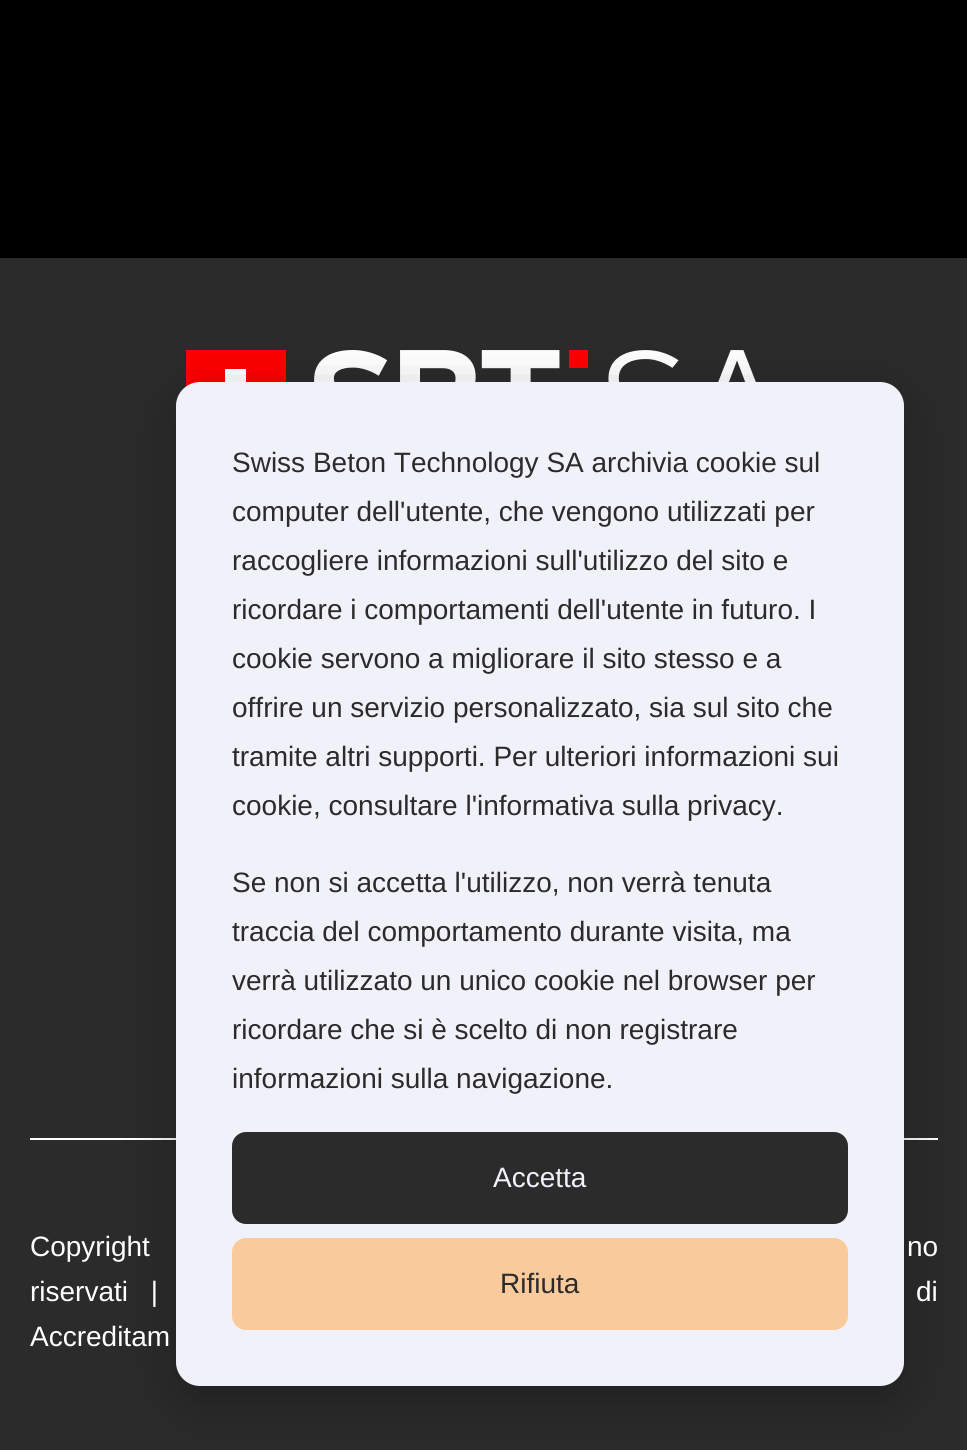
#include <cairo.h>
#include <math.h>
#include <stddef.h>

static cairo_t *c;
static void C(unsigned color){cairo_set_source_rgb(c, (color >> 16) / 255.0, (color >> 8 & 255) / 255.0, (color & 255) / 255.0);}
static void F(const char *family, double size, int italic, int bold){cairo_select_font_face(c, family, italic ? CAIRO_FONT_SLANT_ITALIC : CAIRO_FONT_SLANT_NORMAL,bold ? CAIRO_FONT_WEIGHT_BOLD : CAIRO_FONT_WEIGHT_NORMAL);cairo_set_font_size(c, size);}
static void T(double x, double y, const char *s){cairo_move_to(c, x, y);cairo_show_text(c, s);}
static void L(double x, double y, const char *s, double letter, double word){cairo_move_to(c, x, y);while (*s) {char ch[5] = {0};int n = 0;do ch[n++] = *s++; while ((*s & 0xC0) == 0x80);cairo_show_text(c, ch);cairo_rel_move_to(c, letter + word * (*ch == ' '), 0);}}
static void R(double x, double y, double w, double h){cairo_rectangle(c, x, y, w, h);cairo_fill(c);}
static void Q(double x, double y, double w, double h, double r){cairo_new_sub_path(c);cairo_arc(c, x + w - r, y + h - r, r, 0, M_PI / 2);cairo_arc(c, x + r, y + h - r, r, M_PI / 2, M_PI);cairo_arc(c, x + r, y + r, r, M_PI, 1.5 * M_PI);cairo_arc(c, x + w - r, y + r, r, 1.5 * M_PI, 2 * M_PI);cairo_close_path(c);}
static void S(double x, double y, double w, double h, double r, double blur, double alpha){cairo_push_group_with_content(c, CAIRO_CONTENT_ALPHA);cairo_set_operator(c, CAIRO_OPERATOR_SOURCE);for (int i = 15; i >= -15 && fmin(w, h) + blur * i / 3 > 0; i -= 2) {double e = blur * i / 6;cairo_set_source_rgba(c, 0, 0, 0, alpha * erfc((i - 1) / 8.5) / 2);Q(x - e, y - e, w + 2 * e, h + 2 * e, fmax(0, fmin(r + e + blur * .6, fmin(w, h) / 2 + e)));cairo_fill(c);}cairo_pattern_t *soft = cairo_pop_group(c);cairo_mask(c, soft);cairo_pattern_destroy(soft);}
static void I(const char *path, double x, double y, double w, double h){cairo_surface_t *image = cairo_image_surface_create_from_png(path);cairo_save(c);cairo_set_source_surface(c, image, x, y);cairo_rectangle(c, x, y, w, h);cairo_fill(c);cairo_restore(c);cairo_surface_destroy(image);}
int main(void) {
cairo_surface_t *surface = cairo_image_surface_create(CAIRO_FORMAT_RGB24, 967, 1450);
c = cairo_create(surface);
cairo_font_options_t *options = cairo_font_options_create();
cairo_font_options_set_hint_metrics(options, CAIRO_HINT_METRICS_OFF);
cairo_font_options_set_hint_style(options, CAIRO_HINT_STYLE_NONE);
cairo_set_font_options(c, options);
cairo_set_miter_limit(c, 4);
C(0x000000);
cairo_paint(c);
C(0x2b2b2c);
R(0,258,967,1192);
C(0xffffff);
R(30,1138,908,2);
I("1.png",186,350,570,37);
C(0x000000);
S(176,398,728,1004,24,28,.28);
C(0xf1f1f9);
Q(176,382,728,1004,24);
cairo_fill(c);
F("Liberation Sans",28,0,0);
C(0x2b2b2c);
T(232,472,"Swiss Beton Technology SA archivia cookie sul");
T(232,521,"computer dell'utente, che vengono utilizzati per");
T(232,570,"raccogliere informazioni sull'utilizzo del sito e");
T(232,619,"ricordare i comportamenti dell'utente in futuro. I");
T(232,668,"cookie servono a migliorare il sito stesso e a");
T(232,717,"offrire un servizio personalizzato, sia sul sito che");
T(232,766,"tramite altri supporti. Per ulteriori informazioni sui");
T(232,815,"cookie, consultare l'informativa sulla privacy.");
T(232,892,"Se non si accetta l'utilizzo, non verrà tenuta");
T(232,941,"traccia del comportamento durante visita, ma");
T(232,990,"verrà utilizzato un unico cookie nel browser per");
T(232,1039,"ricordare che si è scelto di non registrare");
T(232,1088,"informazioni sulla navigazione.");
Q(233,1133,614,90,13);
cairo_fill_preserve(c);
cairo_stroke(c);
C(0xf1f1f9);
T(493,1187,"Accetta");
C(0xf9cb9c);
Q(233,1239,614,90,13);
cairo_fill_preserve(c);
cairo_stroke(c);
C(0x2b2b2c);
T(500,1293,"Rifiuta");
C(0xffffff);
L(30,1256,"Copyright",0,9);
L(907,1256,"no",0,9);
L(30,1301,"riservati |",0,15);
L(916,1301,"di",0,15);
T(30,1346,"Accreditam");
cairo_surface_write_to_png(surface, "o.png");
cairo_font_options_destroy(options);
cairo_destroy(c);
cairo_surface_destroy(surface);
return 0;
}
